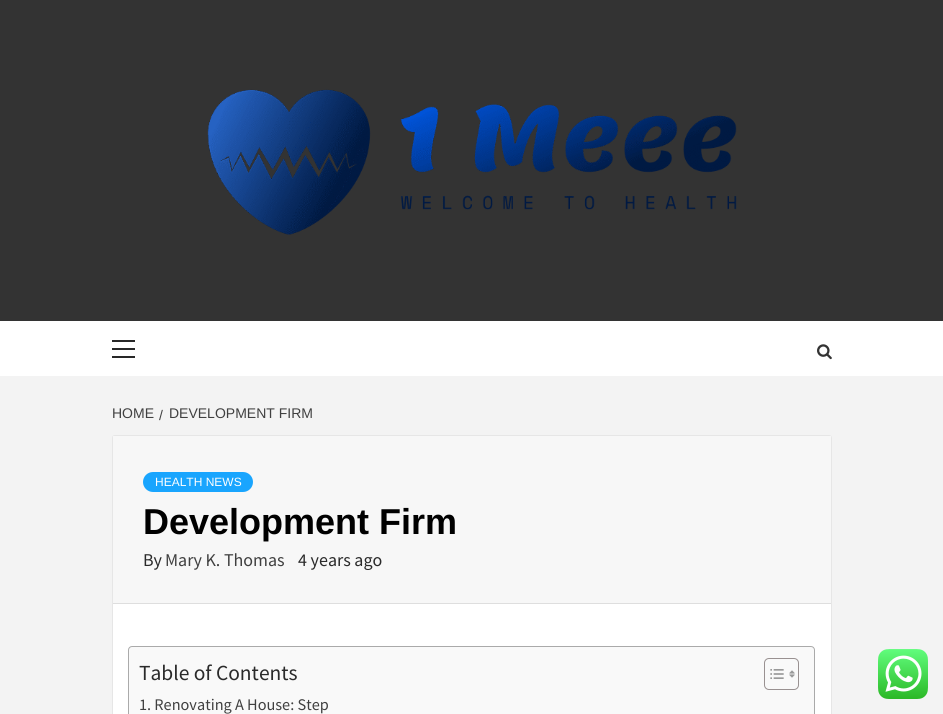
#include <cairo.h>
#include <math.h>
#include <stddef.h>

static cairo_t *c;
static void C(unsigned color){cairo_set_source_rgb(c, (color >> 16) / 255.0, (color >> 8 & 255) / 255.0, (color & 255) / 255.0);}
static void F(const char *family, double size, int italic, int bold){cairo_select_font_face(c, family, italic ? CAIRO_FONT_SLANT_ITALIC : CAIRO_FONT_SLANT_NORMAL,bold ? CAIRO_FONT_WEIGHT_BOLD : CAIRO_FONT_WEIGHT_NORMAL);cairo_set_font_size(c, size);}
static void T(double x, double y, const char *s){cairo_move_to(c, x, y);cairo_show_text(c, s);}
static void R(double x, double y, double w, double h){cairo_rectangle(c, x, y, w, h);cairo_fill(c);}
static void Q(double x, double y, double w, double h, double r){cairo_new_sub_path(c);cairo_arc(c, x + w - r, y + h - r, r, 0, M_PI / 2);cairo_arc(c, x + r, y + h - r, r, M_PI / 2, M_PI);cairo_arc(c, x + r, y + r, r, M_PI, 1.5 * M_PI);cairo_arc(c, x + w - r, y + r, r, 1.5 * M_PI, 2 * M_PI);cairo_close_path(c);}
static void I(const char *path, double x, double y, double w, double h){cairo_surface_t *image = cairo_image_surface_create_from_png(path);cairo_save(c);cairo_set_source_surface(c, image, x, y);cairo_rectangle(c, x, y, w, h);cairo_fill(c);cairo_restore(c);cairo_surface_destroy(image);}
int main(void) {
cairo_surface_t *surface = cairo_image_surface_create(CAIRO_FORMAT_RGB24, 943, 714);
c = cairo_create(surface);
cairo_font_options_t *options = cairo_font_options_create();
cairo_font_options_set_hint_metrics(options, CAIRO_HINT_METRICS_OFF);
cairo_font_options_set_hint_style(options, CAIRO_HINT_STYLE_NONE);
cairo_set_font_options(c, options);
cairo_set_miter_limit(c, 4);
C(0xf3f3f3);
cairo_paint(c);
C(0x333333);
R(0,0,943,321);
I("1.png",207,89,530,146);
C(0xffffff);
R(0,321,943,55);
C(0x282828);
R(112,348,23,2);
R(112,340,23,2);
R(112,356,23,2);
I("2.png",817,344,15,16);
F("Liberation Sans",14,0,0);
C(0x404040);
T(112,418,"HOME");
T(159,420,"/");
T(169,418,"DEVELOPMENT FIRM");
C(0xffffff);
Q(112,435,720,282,3);
cairo_fill(c);
Q(112.5,435.5,719,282,2.5);
cairo_set_source_rgba(c,0,0.004,0.004,0.1);
cairo_set_line_width(c,1);
cairo_stroke(c);
C(0xf7f7f7);
R(113,436,718,167);
C(0xdedede);
R(113,603,718,1);
C(0x19a5fe);
Q(143,472,110,20,10);
cairo_fill(c);
F("Liberation Sans",12,0,0);
C(0xfefefe);
T(155,486,"HEALTH NEWS");
F("Liberation Sans",36,0,1);
C(0x000000);
T(143,534,"Development Firm");
F("Source Sans Pro",18,0,0);
C(0x2a2a2a);
T(143,566,"By");
C(0x404040);
T(165,566,"Mary K. Thomas");
C(0x2a2a2a);
T(298,566,"4 years ago");
C(0xf9f9f9);
Q(128.5,646.5,686,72,3.5);
cairo_fill_preserve(c);
C(0xaaaaaa);
cairo_stroke(c);
F("Source Sans Pro",21.5,0,0);
C(0x2a2a2a);
T(139,680,"Table of Contents");
Q(764.5,658.5,34,31,4.5);
C(0x999191);
cairo_stroke(c);
I("3.png",770,669,14,10);
I("4.png",789,670,6,8);
F("Source Sans Pro",16.25,0,0);
C(0x404040);
T(139,710,"1. Renovating A House: Step");
I("5.png",878,649,50,50);
cairo_surface_write_to_png(surface, "o.png");
cairo_font_options_destroy(options);
cairo_destroy(c);
cairo_surface_destroy(surface);
return 0;
}
